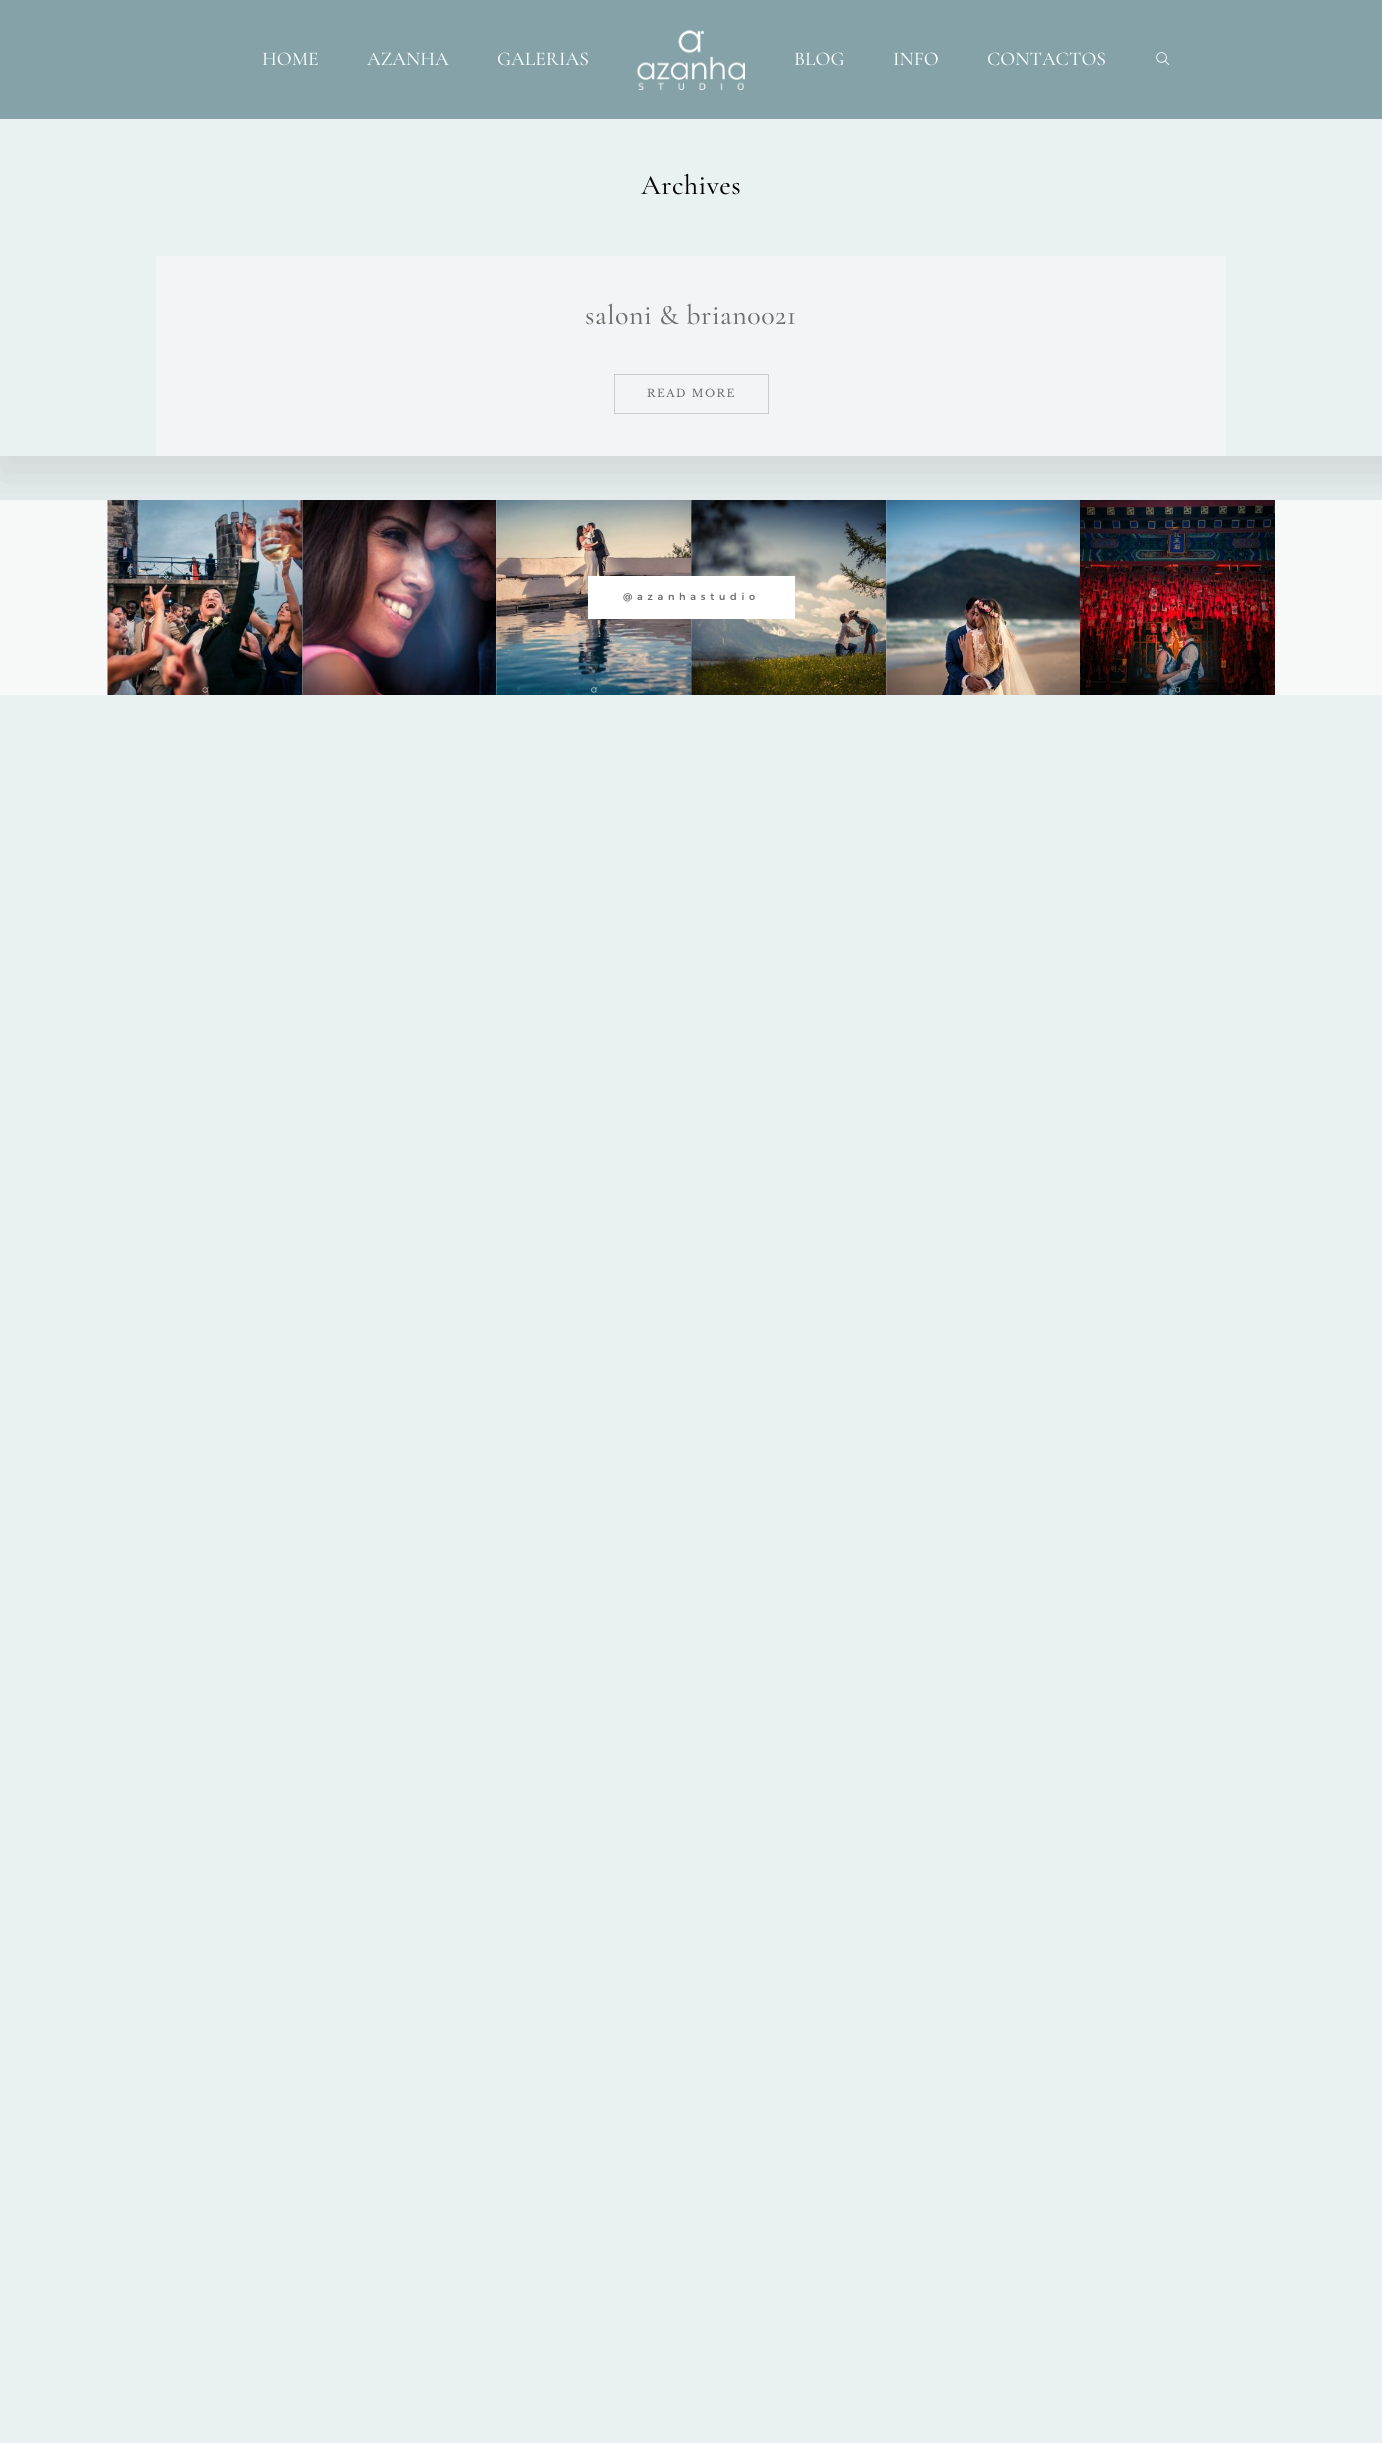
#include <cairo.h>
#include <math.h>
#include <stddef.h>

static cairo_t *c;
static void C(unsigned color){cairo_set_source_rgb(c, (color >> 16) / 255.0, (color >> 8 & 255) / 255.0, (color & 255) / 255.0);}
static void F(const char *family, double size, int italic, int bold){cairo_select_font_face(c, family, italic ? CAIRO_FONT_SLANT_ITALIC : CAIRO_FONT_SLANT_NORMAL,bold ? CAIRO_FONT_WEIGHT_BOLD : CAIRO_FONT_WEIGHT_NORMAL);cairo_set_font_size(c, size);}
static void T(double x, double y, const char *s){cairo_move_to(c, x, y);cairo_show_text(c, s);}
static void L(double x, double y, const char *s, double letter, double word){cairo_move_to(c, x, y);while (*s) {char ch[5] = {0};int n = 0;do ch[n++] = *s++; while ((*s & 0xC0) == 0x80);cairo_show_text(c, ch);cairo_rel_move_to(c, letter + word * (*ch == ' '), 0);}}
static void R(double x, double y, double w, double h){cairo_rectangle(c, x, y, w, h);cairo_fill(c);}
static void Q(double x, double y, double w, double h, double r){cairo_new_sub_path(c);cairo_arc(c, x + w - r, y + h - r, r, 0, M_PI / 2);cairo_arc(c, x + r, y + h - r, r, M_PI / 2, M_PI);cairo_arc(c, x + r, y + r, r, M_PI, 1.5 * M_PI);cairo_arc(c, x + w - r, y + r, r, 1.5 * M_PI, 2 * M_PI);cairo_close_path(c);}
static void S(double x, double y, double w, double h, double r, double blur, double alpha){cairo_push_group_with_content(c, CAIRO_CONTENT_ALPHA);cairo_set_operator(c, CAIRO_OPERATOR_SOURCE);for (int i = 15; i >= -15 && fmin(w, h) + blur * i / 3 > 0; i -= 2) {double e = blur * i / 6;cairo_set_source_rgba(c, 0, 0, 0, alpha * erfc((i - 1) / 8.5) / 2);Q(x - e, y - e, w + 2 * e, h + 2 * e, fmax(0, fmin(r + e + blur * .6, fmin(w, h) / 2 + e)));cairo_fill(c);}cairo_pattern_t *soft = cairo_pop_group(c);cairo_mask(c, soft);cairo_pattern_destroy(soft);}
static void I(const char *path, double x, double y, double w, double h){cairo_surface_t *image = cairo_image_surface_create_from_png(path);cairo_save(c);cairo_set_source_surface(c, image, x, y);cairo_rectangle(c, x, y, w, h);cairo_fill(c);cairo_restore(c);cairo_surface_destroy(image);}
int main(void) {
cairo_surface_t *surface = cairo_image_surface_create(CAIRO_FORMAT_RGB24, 1382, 2443);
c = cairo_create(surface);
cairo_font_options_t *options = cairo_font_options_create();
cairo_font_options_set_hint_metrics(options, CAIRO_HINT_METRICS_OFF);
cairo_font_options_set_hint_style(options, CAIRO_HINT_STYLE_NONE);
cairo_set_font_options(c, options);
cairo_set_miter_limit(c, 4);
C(0xeaf1f2);
cairo_paint(c);
cairo_save(c);
cairo_rectangle(c,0,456,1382,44);
cairo_clip(c);
C(0x000000);
S(-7,-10,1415,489,0,30.5,.12);
cairo_restore(c);
C(0x84a2a8);
R(0,0,1382,119);
F("Cormorant Garamond Medium",19.5,0,0);
C(0xf9feff);
T(262,65,"HOME");
T(367,65,"AZANHA");
T(497,65,"GALERIAS");
I("1.png",637,30,108,60);
T(794,65,"BLOG");
T(893,65,"INFO");
T(987,65,"CONTACTOS");
I("2.png",1156,52,14,13);
F("Cormorant Garamond Medium",28,0,0);
C(0x000000);
L(641,194,"Archives",.5,0);
C(0xf2f5f7);
R(156,256,1070,200);
C(0x6e6e6e);
L(585,324,"saloni & brian0021",.5,0);
cairo_rectangle(c,614.5,374.5,154,39);
C(0xcacdce);
cairo_set_line_width(c,1);
cairo_stroke(c);
F("Libre Baskerville",10.75,0,0);
C(0x6e6e6e);
L(647,397,"READ MORE",1.5,0);
C(0xf7f8f8);
R(0,500,1382,195);
I("3.png",107,500,196,195);
I("4.png",302,500,195,195);
I("5.png",496,500,196,195);
I("6.png",691,500,196,195);
I("7.png",886,500,194,195);
I("8.png",1080,500,195,195);
C(0xffffff);
R(588,576,207,43);
F("Montserrat Medium",9.75,0,0);
C(0x6e6e6e);
L(623,600,"@azanhastudio",4.7,0);
cairo_surface_write_to_png(surface, "o.png");
cairo_font_options_destroy(options);
cairo_destroy(c);
cairo_surface_destroy(surface);
return 0;
}
